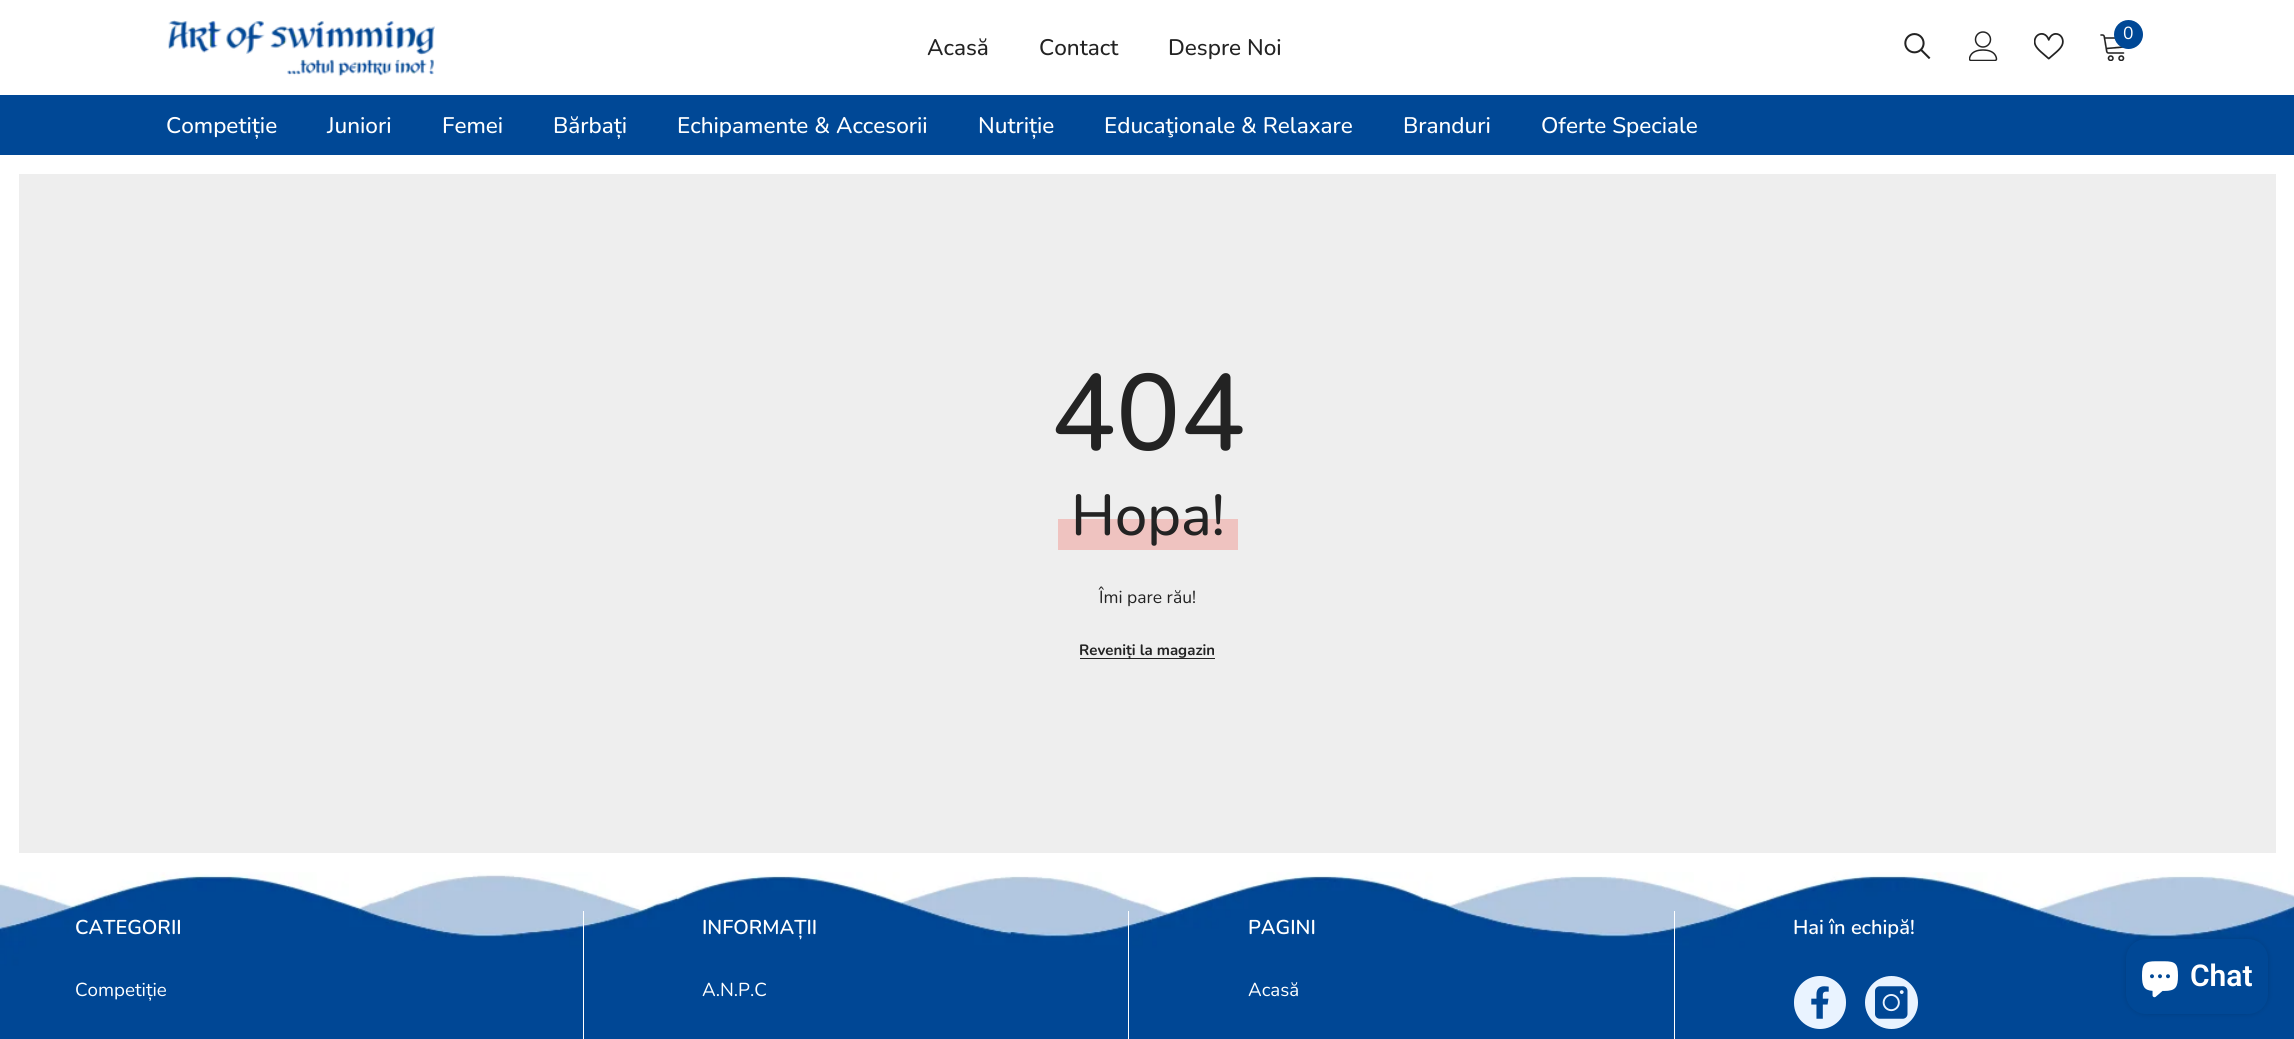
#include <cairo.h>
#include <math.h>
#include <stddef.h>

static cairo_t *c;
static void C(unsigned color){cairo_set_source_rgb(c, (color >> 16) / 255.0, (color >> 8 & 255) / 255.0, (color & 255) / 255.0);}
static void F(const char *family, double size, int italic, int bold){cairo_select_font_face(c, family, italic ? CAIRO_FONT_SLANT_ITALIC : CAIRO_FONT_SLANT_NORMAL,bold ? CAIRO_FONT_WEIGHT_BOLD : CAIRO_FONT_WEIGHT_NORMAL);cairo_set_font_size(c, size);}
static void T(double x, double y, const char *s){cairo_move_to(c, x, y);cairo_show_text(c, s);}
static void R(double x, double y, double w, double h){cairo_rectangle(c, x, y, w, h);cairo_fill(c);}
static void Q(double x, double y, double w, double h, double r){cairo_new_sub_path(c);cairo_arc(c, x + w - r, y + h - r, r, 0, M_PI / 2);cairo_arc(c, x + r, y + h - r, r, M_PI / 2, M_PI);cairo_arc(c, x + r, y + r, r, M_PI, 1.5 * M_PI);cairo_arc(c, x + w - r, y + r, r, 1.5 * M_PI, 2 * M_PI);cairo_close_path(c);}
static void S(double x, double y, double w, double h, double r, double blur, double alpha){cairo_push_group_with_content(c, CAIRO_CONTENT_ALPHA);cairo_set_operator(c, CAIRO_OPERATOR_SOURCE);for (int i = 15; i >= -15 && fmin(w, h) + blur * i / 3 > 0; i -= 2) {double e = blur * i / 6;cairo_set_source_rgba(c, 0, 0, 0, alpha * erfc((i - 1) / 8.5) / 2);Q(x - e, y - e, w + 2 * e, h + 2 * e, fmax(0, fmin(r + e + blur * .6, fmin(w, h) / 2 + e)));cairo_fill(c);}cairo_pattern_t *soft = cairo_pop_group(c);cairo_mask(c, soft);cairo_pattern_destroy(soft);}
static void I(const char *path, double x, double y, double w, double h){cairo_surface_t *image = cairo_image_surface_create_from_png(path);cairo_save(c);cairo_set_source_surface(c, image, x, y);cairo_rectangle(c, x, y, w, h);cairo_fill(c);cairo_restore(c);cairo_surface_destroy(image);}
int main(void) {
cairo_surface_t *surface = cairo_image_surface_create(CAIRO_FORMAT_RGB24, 2294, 1039);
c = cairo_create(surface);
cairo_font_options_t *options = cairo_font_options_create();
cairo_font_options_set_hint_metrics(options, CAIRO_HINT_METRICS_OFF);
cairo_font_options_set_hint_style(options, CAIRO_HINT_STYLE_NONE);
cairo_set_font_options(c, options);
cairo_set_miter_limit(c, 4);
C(0xffffff);
cairo_paint(c);
I("1.png",168,20,267,57);
I("2.png",1904,33,27,26);
I("3.png",1969,31,29,30);
I("4.png",2034,33,30,27);
I("5.png",2100,34,25,27);
C(0x004896);
cairo_arc(c,2128.5,34.5,14.5,0,2 * M_PI);
cairo_fill(c);
F("Nunito",17.5,0,0);
C(0xffffff);
T(2123,39,"0");
F("Nunito Medium",22.5,0,0);
C(0x232323);
T(927,55,"Acasă");
T(1039,55,"Contact");
T(1168,55,"Despre Noi");
C(0x004896);
R(0,95,2294,60);
C(0xffffff);
T(166,133,"Competiție");
T(327,133,"Juniori");
T(442,133,"Femei");
T(553,133,"Bărbați");
T(677,133,"Echipamente & Accesorii");
T(978,133,"Nutriție");
T(1104,133,"Educaţionale & Relaxare");
T(1403,133,"Branduri");
T(1541,133,"Oferte Speciale");
C(0xeeeeee);
R(19,174,2257,679);
F("Nunito Medium",108,0,0);
C(0x232323);
T(1051,450,"404");
C(0xefc3c0);
R(1058,519,180,31);
F("Nunito Medium",57.5,0,0);
C(0x232323);
T(1071,535,"Hopa!");
F("Nunito",17.5,0,0);
T(1099,603,"Îmi pare rău!");
R(1080,658,135,1);
F("Nunito",15,0,1);
T(1079,655,"Reveniți la magazin");
I("6.png",0,872,2294,167);
F("Nunito SemiBold",20,0,0);
C(0xffffff);
T(75,934,"CATEGORII");
R(583,911,1,128);
F("Nunito",18.75,0,0);
T(75,996,"Competiție");
F("Nunito SemiBold",20,0,0);
T(702,934,"INFORMAȚII");
R(1128,911,1,128);
F("Nunito",18.75,0,0);
T(702,996,"A.N.P.C");
F("Nunito SemiBold",20,0,0);
T(1248,934,"PAGINI");
R(1674,911,1,128);
F("Nunito",18.75,0,0);
T(1248,996,"Acasă");
F("Nunito SemiBold",20,0,0);
T(1793,934,"Hai în echipă!");
C(0xe9f3ff);
Q(1795.5,977.5,49,50,24.5);
cairo_fill_preserve(c);
cairo_set_line_width(c,3);
cairo_stroke(c);
I("7.png",1811,986,18,33);
cairo_arc(c,1891.5,1002.5,25,0,2 * M_PI);
cairo_fill_preserve(c);
cairo_stroke(c);
I("8.png",1875,986,33,33);
C(0x000000);
S(2126,939,142,75,20,3,.15);
C(0x004896);
Q(2126,939,142,75,20);
cairo_fill(c);
I("9.png",2142,961,36,37);
F("Roboto SemiBold",30,0,0);
C(0xffffff);
T(2190,986,"Chat");
cairo_surface_write_to_png(surface, "o.png");
cairo_font_options_destroy(options);
cairo_destroy(c);
cairo_surface_destroy(surface);
return 0;
}
